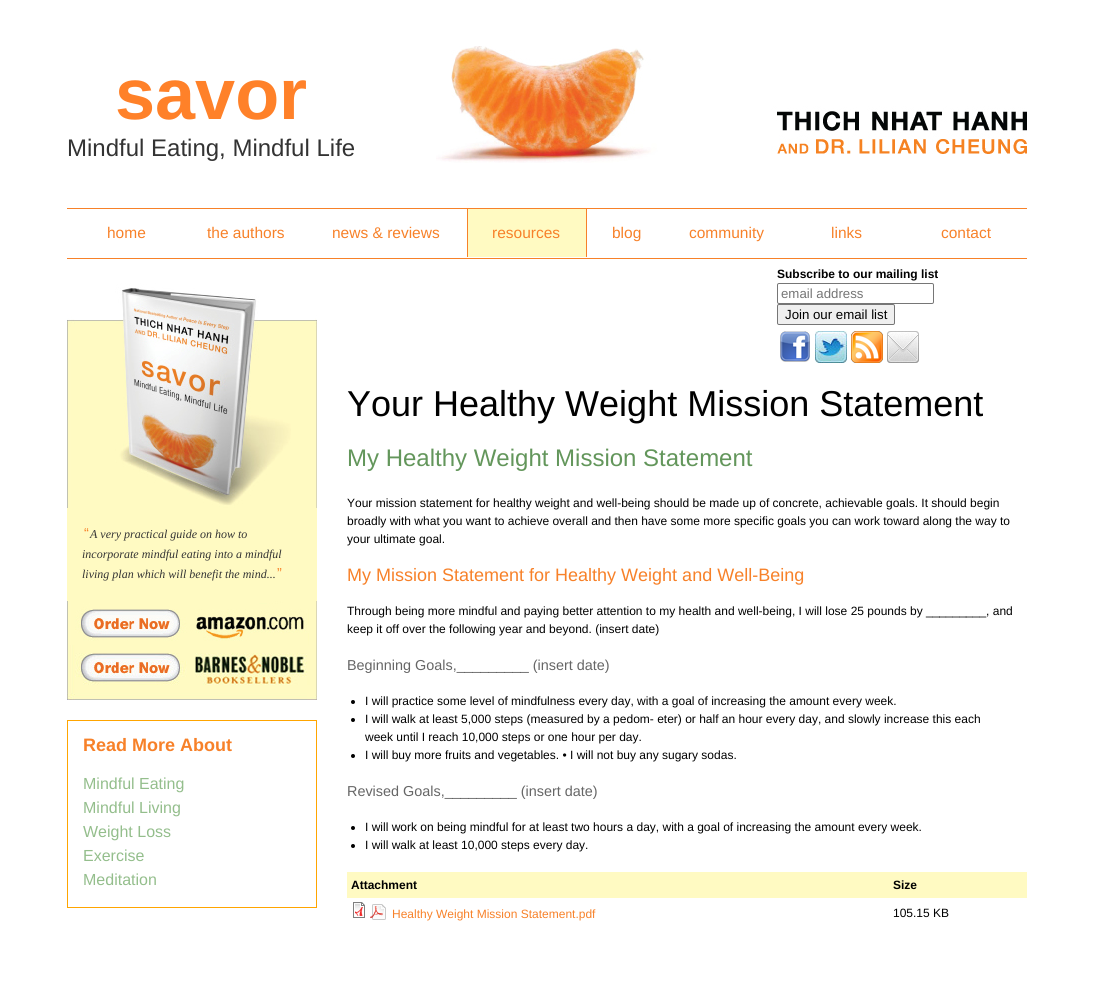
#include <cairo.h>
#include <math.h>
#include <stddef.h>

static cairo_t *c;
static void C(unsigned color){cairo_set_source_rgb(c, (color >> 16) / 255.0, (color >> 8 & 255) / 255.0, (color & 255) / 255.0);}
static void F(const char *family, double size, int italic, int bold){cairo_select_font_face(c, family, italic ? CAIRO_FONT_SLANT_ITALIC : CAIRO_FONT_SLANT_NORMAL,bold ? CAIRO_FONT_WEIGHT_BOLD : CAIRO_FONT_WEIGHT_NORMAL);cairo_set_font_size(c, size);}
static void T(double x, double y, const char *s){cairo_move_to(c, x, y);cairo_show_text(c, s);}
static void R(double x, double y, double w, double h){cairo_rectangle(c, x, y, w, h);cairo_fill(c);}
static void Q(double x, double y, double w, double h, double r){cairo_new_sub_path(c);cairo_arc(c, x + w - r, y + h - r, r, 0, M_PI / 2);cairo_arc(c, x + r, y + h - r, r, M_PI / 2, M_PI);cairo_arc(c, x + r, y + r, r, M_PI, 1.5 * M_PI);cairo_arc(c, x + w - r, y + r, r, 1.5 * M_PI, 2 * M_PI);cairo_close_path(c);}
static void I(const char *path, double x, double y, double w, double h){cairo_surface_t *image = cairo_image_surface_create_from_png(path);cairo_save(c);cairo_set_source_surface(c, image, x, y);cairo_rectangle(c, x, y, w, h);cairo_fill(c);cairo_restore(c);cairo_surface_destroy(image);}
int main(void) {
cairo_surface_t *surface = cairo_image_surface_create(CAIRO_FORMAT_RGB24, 1093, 999);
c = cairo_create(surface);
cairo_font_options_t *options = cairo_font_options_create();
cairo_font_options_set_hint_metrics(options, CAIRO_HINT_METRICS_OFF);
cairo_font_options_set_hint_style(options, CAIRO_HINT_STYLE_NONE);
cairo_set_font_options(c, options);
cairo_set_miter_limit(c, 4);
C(0xffffff);
cairo_paint(c);
F("Liberation Sans",72,0,1);
C(0xff8129);
T(115,119,"savor");
F("Liberation Sans",24,0,0);
C(0x333333);
T(67,156,"Mindful Eating, Mindful Life");
I("1.png",436,46,591,117);
C(0xf78129);
R(67,208,960,1);
R(67,258,960,1);
F("Liberation Sans",15.5,0,0);
T(107,238,"home");
T(207,238,"the authors");
T(332,238,"news & reviews");
C(0xfffac2);
R(468,209,118,48);
C(0xf78129);
R(586,209,1,48);
R(467,209,1,48);
T(492,238,"resources");
T(612,238,"blog");
T(689,238,"community");
T(831,238,"links");
T(941,238,"contact");
C(0xfffac2);
R(67,508,250,93);
I("2.png",67,259,250,249);
F("Liberation Sans",14.4,0,0);
C(0xf78129);
T(84,538,"“");
F("Liberation Serif",12,1,0);
C(0x333333);
T(90,538,"A very practical guide on how to");
T(82,558,"incorporate mindful eating into a mindful");
T(82,578,"living plan which will benefit the mind...");
F("Liberation Sans",14.4,0,0);
C(0xf78129);
T(277,578,"”");
I("3.png",67,601,250,44);
I("4.png",67,645,250,55);
cairo_rectangle(c,67.5,720.5,249,187);
C(0xffa500);
cairo_set_line_width(c,1);
cairo_stroke(c);
F("Liberation Sans",18,0,1);
C(0xf78129);
T(83,751,"Read More About");
F("Liberation Sans",16,0,0);
C(0x94be8c);
T(83,789,"Mindful Eating");
T(83,813,"Mindful Living");
T(83,837,"Weight Loss");
T(83,861,"Exercise");
T(83,885,"Meditation");
F("Liberation Sans",12,0,1);
C(0x000000);
T(777,278,"Subscribe to our mailing list");
Q(777.5,283.5,156,20,1.5);
C(0x767676);
cairo_stroke(c);
F("Liberation Sans",13.25,0,0);
C(0x757575);
T(781,298,"email address");
C(0xefefef);
Q(777.5,304.5,117,20,1.5);
cairo_fill_preserve(c);
C(0x767676);
cairo_stroke(c);
C(0x000000);
T(785,319,"Join our email list");
I("5.png",780,331,30,31);
I("6.png",815,331,32,32);
I("7.png",851,331,32,32);
I("8.png",887,331,32,32);
F("Liberation Sans",36,0,0);
T(347,416,"Your Healthy Weight Mission Statement");
F("Liberation Sans",24,0,0);
C(0x63965b);
T(347,466,"My Healthy Weight Mission Statement");
F("Liberation Sans",12,0,0);
C(0x000000);
T(347,507,"Your mission statement for healthy weight and well-being should be made up of concrete, achievable goals. It should begin");
T(347,525,"broadly with what you want to achieve overall and then have some more specific goals you can work toward along the way to");
T(347,543,"your ultimate goal.");
F("Liberation Sans",18,0,0);
C(0xf78129);
T(347,581,"My Mission Statement for Healthy Weight and Well-Being");
F("Liberation Sans",12,0,0);
C(0x000000);
T(347,615,"Through being more mindful and paying better attention to my health and well-being, I will lose 25 pounds by _________, and");
T(347,633,"keep it off over the following year and beyond. (insert date)");
F("Liberation Sans",14.4,0,0);
C(0x666666);
T(347,670,"Beginning Goals,_________ (insert date)");
C(0x000000);
cairo_new_path(c);
cairo_arc(c,353,702,2,0,2 * M_PI);
cairo_fill(c);
F("Liberation Sans",12,0,0);
T(365,705,"I will practice some level of mindfulness every day, with a goal of increasing the amount every week.");
cairo_new_path(c);
cairo_arc(c,353,720,2,0,2 * M_PI);
cairo_fill(c);
T(365,723,"I will walk at least 5,000 steps (measured by a pedom- eter) or half an hour every day, and slowly increase this each");
T(365,741,"week until I reach 10,000 steps or one hour per day.");
cairo_new_path(c);
cairo_arc(c,353,756,2,0,2 * M_PI);
cairo_fill(c);
T(365,759,"I will buy more fruits and vegetables. • I will not buy any sugary sodas.");
F("Liberation Sans",14.4,0,0);
C(0x666666);
T(347,796,"Revised Goals,_________ (insert date)");
C(0x000000);
cairo_new_path(c);
cairo_arc(c,353,828,2,0,2 * M_PI);
cairo_fill(c);
F("Liberation Sans",12,0,0);
T(365,831,"I will work on being mindful for at least two hours a day, with a goal of increasing the amount every week.");
cairo_new_path(c);
cairo_arc(c,353,846,2,0,2 * M_PI);
cairo_fill(c);
T(365,849,"I will walk at least 10,000 steps every day.");
C(0xfffac2);
R(347,872,680,26);
F("Liberation Sans",12,0,1);
C(0x000000);
T(351,889,"Attachment");
T(893,889,"Size");
I("9.png",353,902,12,16);
I("10.png",370,904,16,16);
F("Liberation Sans",12,0,0);
C(0xf78129);
T(392,918,"Healthy Weight Mission Statement.pdf");
C(0x000000);
T(893,917,"105.15 KB");
cairo_surface_write_to_png(surface, "o.png");
cairo_font_options_destroy(options);
cairo_destroy(c);
cairo_surface_destroy(surface);
return 0;
}
